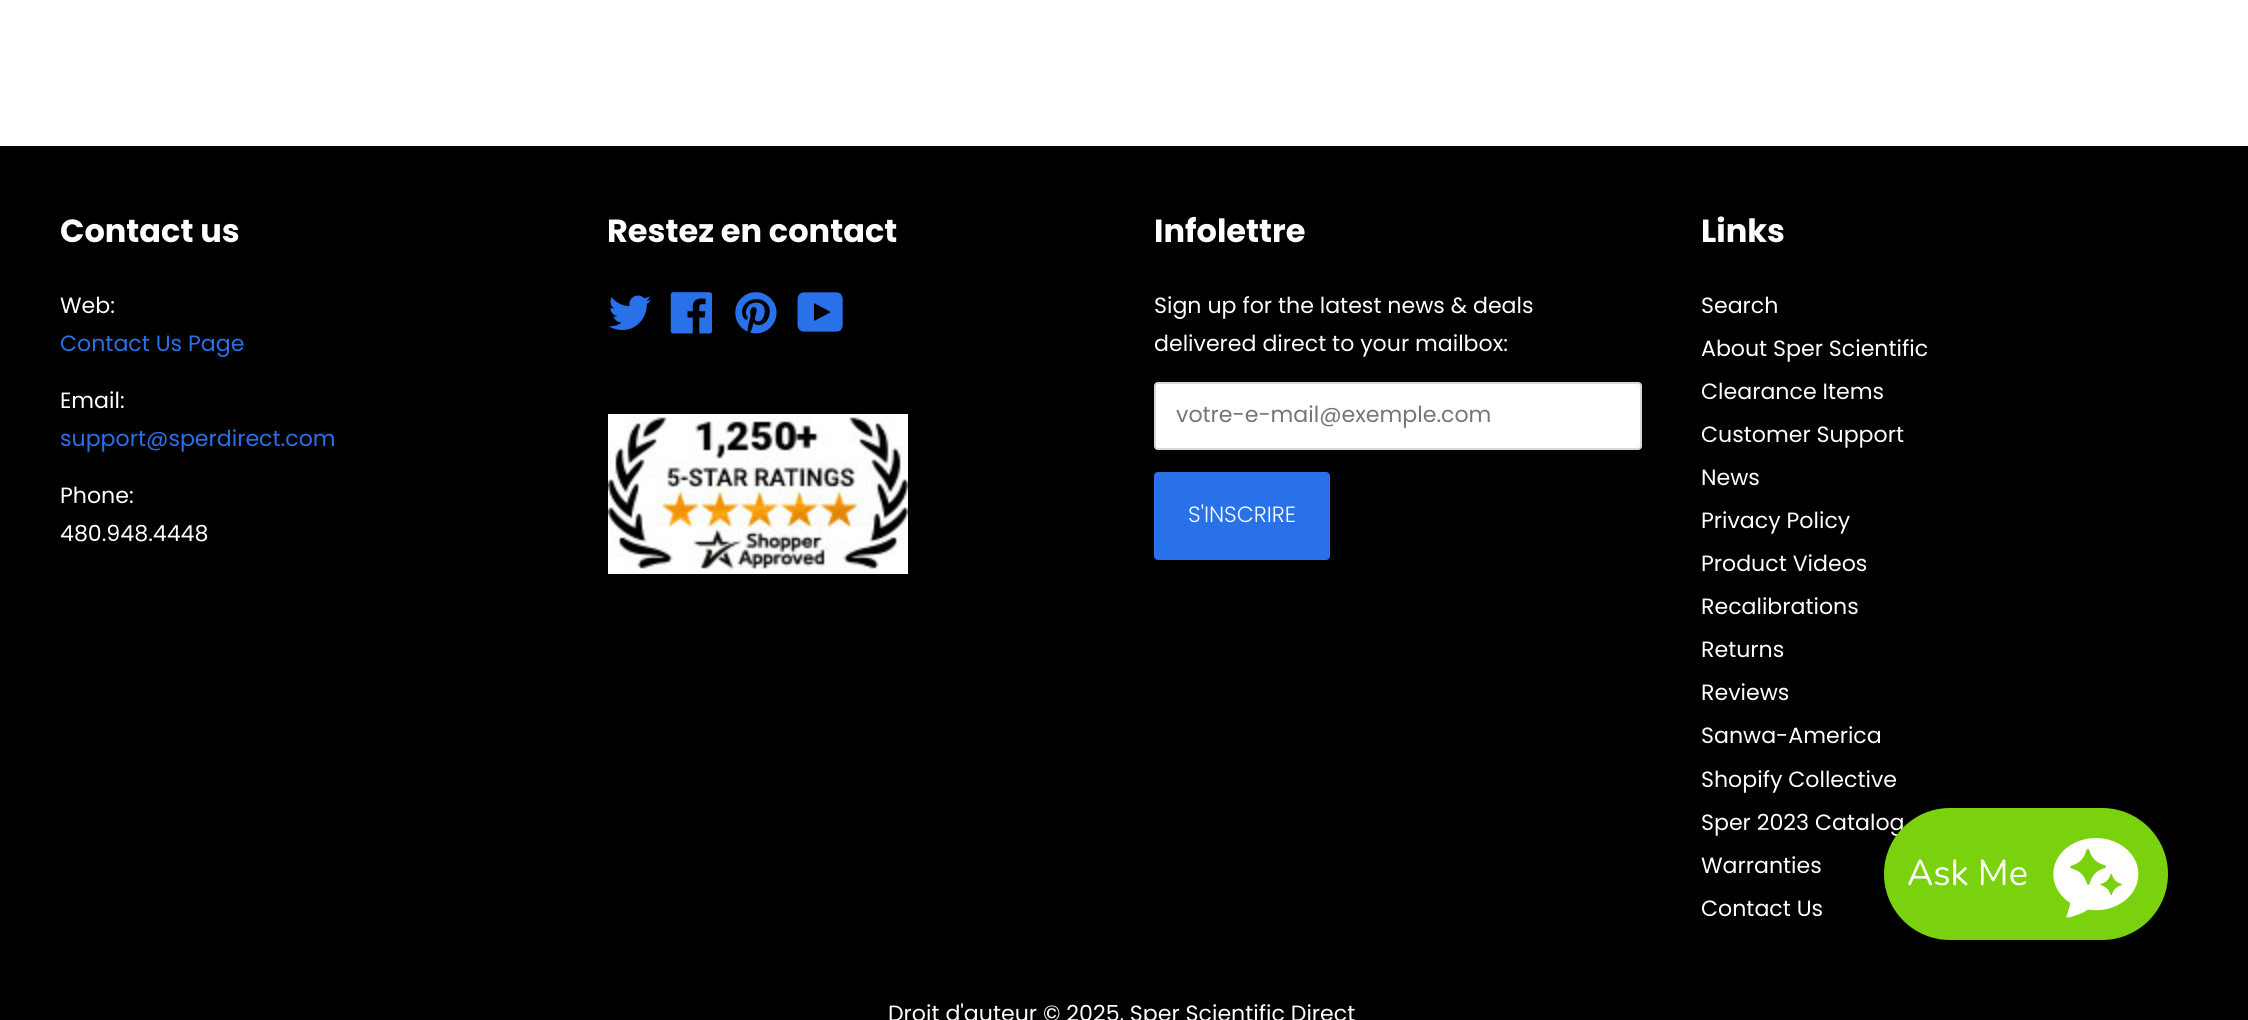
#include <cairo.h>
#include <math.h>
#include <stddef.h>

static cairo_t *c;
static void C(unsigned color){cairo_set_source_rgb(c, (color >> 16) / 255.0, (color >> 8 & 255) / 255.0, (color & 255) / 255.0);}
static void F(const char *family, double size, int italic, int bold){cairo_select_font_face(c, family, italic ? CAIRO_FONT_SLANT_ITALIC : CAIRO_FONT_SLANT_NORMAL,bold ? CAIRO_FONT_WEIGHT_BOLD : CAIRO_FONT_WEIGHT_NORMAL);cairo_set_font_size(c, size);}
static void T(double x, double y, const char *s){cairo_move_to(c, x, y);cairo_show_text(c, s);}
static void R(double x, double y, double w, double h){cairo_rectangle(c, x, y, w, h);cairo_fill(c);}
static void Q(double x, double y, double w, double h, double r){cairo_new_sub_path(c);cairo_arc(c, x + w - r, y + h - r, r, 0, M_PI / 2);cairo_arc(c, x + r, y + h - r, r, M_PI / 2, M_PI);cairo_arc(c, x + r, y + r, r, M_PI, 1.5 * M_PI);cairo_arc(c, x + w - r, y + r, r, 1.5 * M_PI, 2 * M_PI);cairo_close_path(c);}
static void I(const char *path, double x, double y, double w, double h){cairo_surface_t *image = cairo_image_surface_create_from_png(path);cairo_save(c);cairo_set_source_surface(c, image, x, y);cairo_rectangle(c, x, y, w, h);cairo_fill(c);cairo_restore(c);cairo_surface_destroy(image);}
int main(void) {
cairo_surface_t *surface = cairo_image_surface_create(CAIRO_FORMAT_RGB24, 2248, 1020);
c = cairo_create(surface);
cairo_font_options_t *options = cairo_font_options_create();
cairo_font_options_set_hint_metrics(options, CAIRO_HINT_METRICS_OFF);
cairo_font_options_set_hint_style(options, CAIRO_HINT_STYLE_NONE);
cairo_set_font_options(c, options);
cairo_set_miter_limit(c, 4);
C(0xffffff);
cairo_paint(c);
C(0x000000);
R(0,146,2248,874);
F("Poppins",32,0,1);
C(0xffffff);
T(60,242,"Contact us");
F("Poppins",22.1,0,0);
T(60,313,"Web:");
C(0x2871e8);
T(60,351,"Contact Us Page");
C(0xffffff);
T(60,408,"Email:");
C(0x2871e8);
T(60,446,"support@sperdirect.com");
C(0xffffff);
T(60,503,"Phone:");
T(60,541,"480.948.4448");
F("Poppins",32,0,1);
T(607,242,"Restez en contact");
I("1.png",608,295,43,35);
I("2.png",670,292,43,42);
I("3.png",735,292,42,42);
I("4.png",797,292,46,40);
I("5.png",608,414,300,160);
T(1154,242,"Infolettre");
F("Poppins",22.1,0,0);
T(1154,313,"Sign up for the latest news & deals");
T(1154,351,"delivered direct to your mailbox:");
Q(1154,382,488,68,4);
cairo_fill(c);
Q(1155,383,486,66,3);
cairo_set_source_rgba(c,0,0,0,0.15);
cairo_stroke(c);
C(0x757575);
T(1176,422,"votre-e-mail@exemple.com");
C(0x2871e8);
Q(1154,472,176,88,4);
cairo_fill(c);
F("Poppins Light",22.1,0,0);
C(0xffffff);
T(1188,522,"S'INSCRIRE");
F("Poppins",32,0,1);
T(1701,242,"Links");
F("Poppins",22.1,0,0);
T(1701,313,"Search");
T(1701,356,"About Sper Scientific");
T(1701,399,"Clearance Items");
T(1701,442,"Customer Support");
T(1701,485,"News");
T(1701,528,"Privacy Policy");
T(1701,571,"Product Videos");
T(1701,614,"Recalibrations");
T(1701,657,"Returns");
T(1701,700,"Reviews");
T(1701,743,"Sanwa-America");
T(1701,787,"Shopify Collective");
T(1701,830,"Sper 2023 Catalog");
T(1701,873,"Warranties");
T(1701,916,"Contact Us");
T(888,1021,"Droit d'auteur © 2025, Sper Scientific Direct");
C(0x7ad20e);
Q(1884,808,284,132,66);
cairo_fill(c);
F("Nunito",36,0,0);
C(0xffffff);
T(1907,885,"Ask Me");
I("6.png",2053,838,86,80);
cairo_surface_write_to_png(surface, "o.png");
cairo_font_options_destroy(options);
cairo_destroy(c);
cairo_surface_destroy(surface);
return 0;
}
